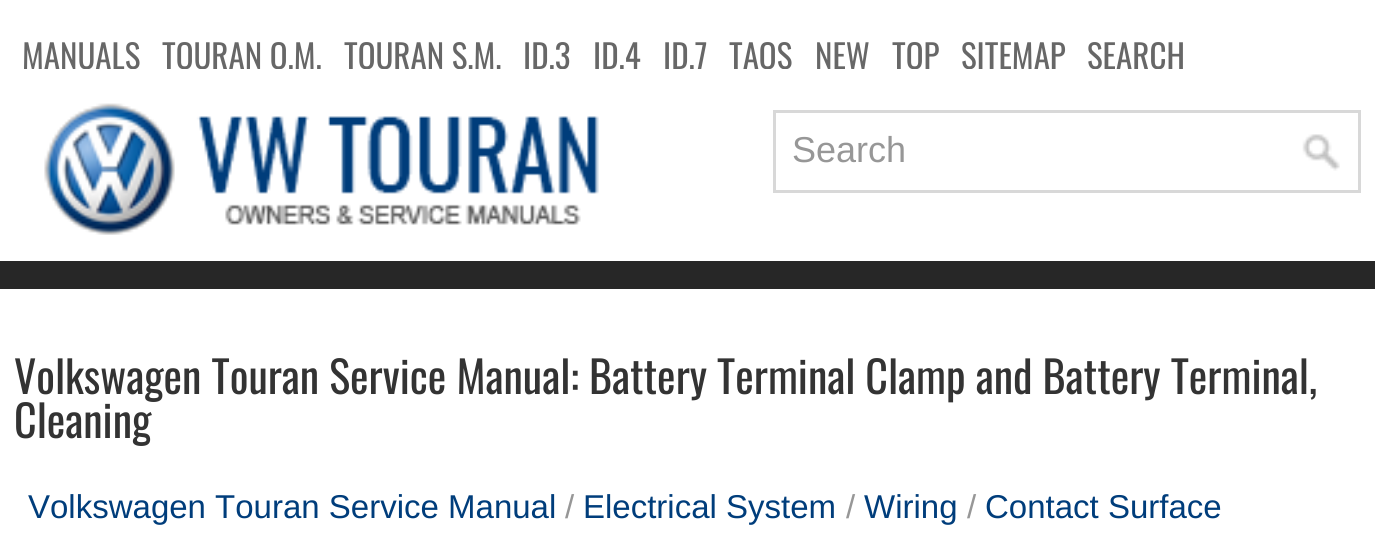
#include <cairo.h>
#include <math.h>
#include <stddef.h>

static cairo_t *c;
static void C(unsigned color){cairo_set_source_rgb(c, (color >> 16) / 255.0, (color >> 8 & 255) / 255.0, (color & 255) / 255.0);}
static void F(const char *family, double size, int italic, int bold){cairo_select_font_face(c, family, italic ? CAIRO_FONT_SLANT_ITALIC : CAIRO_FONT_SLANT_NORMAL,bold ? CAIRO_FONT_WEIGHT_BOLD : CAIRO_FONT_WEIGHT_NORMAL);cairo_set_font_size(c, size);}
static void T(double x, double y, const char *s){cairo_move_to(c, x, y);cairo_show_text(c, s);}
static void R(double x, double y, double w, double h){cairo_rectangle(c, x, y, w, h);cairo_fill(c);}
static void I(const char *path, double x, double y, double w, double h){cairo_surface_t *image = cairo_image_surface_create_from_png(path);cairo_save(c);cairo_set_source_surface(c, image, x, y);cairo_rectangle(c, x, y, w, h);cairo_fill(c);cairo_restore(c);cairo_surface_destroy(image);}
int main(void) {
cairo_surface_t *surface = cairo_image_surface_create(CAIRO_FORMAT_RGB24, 1375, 537);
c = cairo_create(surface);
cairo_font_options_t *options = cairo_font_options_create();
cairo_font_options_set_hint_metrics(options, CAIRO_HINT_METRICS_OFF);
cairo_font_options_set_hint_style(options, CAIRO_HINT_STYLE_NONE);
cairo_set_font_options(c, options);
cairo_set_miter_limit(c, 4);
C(0xffffff);
cairo_paint(c);
C(0x272727);
R(0,261,1375,28);
cairo_save(c);
cairo_rectangle(c,14,28,1347,41);
cairo_clip(c);
F("Oswald",33,0,0);
C(0x676767);
T(22,69,"MANUALS");
T(162,69,"TOURAN O.M.");
T(344,69,"TOURAN S.M.");
T(523,69,"ID.3");
cairo_restore(c);
F("Oswald",33,0,0);
C(0x676767);
T(593,69,"ID.4");
T(663,69,"ID.7");
cairo_save(c);
cairo_rectangle(c,14,28,1347,41);
cairo_clip(c);
T(729,69,"TAOS");
cairo_restore(c);
T(815,69,"NEW");
cairo_save(c);
cairo_rectangle(c,14,28,1347,41);
cairo_clip(c);
T(892,69,"TOP");
T(961,69,"SITEMAP");
T(1087,69,"SEARCH");
cairo_restore(c);
I("1.png",44,103,555,132);
cairo_rectangle(c,774.5,111.5,585,80);
C(0xd8d8d8);
cairo_set_line_width(c,3);
cairo_stroke(c);
F("Liberation Sans",36,0,0);
C(0x979797);
T(792,162,"Search");
I("2.png",1302,134,38,37);
F("Oswald",44,0,0);
C(0x333333);
T(14,394,"Volkswagen Touran Service Manual: Battery Terminal Clamp and Battery Terminal,");
T(14,438,"Cleaning");
F("Liberation Sans",33,0,0);
C(0x003d7b);
T(28,518,"Volkswagen Touran Service Manual");
C(0x979797);
T(565,518,"/");
C(0x003d7b);
T(583,518,"Electrical System");
C(0x979797);
T(846,518,"/");
C(0x003d7b);
T(864,518,"Wiring");
C(0x979797);
T(967,518,"/");
C(0x003d7b);
T(985,518,"Contact Surface");
cairo_surface_write_to_png(surface, "o.png");
cairo_font_options_destroy(options);
cairo_destroy(c);
cairo_surface_destroy(surface);
return 0;
}
